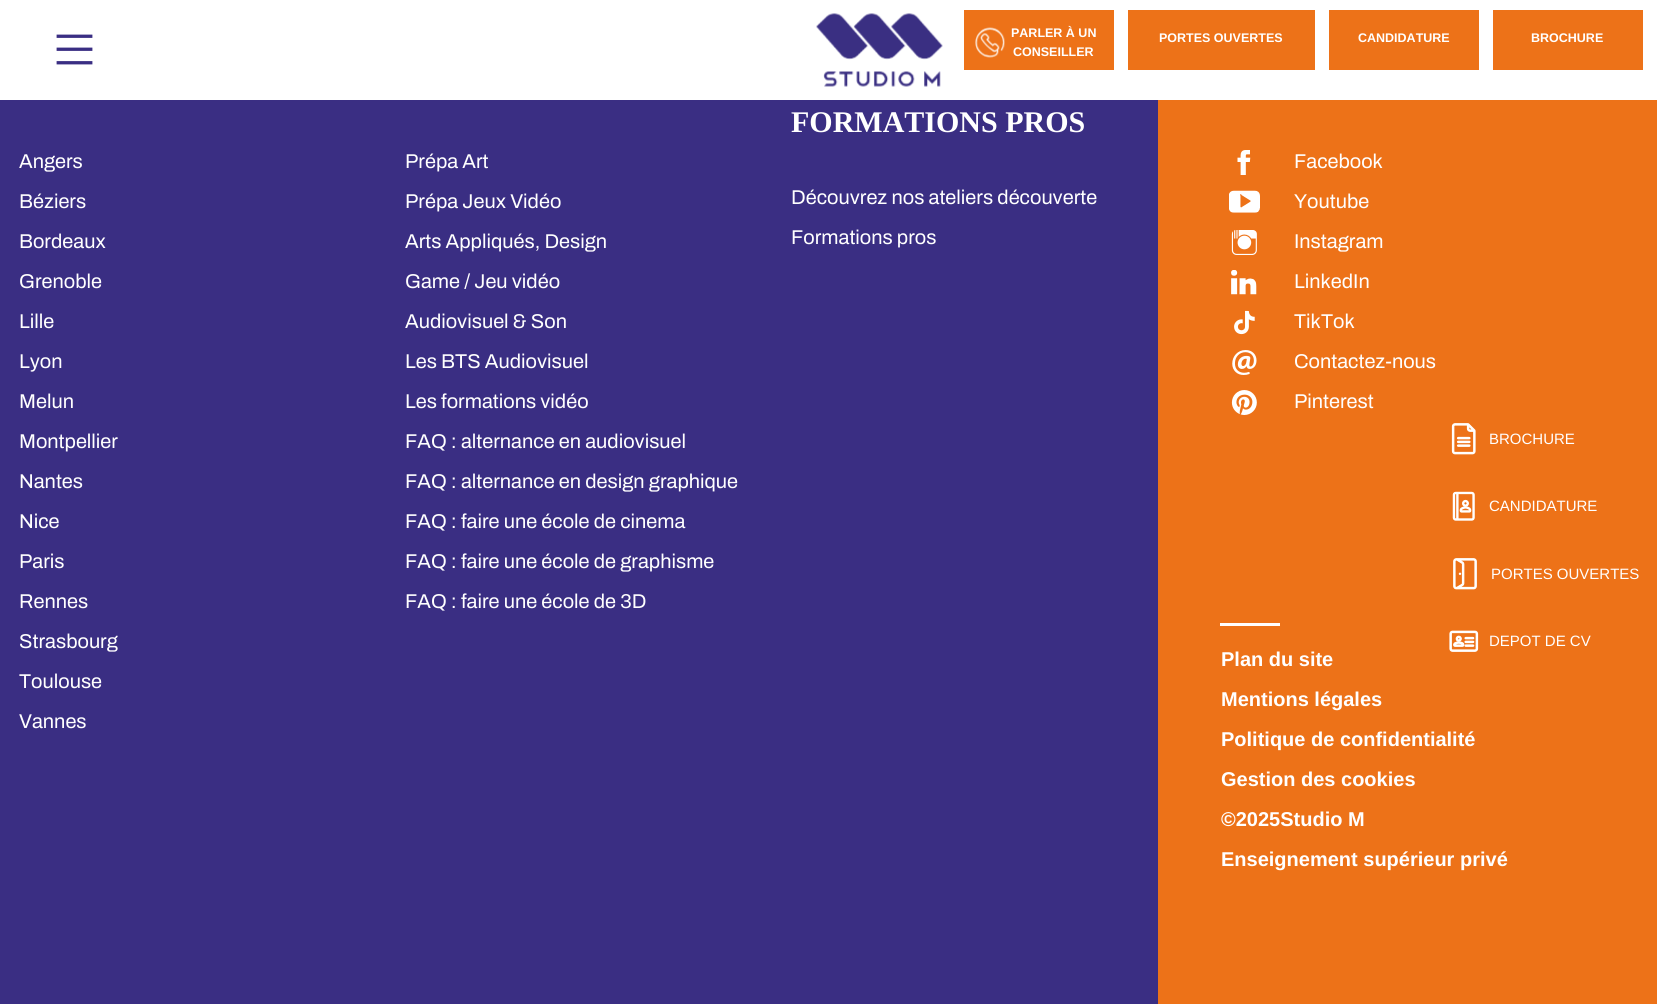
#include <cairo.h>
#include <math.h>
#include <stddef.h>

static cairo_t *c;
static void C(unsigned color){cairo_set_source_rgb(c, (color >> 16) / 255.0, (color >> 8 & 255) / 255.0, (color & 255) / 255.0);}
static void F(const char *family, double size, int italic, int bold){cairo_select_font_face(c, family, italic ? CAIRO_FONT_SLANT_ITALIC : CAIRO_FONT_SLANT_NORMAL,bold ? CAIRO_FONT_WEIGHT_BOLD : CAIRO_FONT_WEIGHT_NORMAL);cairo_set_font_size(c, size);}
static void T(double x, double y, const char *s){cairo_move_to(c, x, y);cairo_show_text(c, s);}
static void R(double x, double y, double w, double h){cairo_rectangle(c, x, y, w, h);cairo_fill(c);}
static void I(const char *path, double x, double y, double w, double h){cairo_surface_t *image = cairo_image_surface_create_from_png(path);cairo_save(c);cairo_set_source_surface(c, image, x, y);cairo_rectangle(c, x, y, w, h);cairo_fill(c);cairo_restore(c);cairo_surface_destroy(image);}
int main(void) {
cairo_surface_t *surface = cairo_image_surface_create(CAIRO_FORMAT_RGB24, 1657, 1004);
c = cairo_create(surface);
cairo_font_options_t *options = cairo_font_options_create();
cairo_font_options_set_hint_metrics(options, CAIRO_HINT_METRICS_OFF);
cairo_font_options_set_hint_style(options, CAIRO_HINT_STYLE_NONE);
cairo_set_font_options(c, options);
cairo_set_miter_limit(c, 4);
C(0x3a2e83);
cairo_paint(c);
C(0xffffff);
R(0,0,1657,100);
cairo_new_path(c);
cairo_move_to(c,57.5,35.5);
cairo_line_to(c,91.5,35.5);
cairo_line_to(c,91.5,37);
cairo_line_to(c,57.5,37);
cairo_close_path(c);
cairo_move_to(c,57.5,48.5);
cairo_line_to(c,91.5,48.5);
cairo_line_to(c,91.5,50);
cairo_line_to(c,57.5,50);
cairo_close_path(c);
cairo_move_to(c,57.5,62);
cairo_line_to(c,91.5,62);
cairo_line_to(c,91.5,63.5);
cairo_line_to(c,57.5,63.5);
cairo_close_path(c);
C(0x3a2e83);
cairo_set_line_width(c,1.8);
cairo_stroke(c);
I("1.png",816,13,127,74);
C(0xed7218);
R(964,10,150,60);
I("2.png",975,27,30,31);
F("Liberation Sans",12.5,0,1);
C(0xffffff);
T(1011,37,"PARLER À UN");
T(1013,56,"CONSEILLER");
C(0xed7218);
R(1128,10,187,60);
C(0xffffff);
T(1159,42,"PORTES OUVERTES");
C(0xed7218);
R(1329,10,150,60);
C(0xffffff);
T(1358,42,"CANDIDATURE");
C(0xed7218);
R(1493,10,150,60);
C(0xffffff);
T(1531,42,"BROCHURE");
F("Archivo",20,0,0);
T(19,168,"Angers");
T(19,208,"Béziers");
T(19,248,"Bordeaux");
T(19,288,"Grenoble");
T(19,328,"Lille");
T(19,368,"Lyon");
T(19,408,"Melun");
T(19,448,"Montpellier");
T(19,488,"Nantes");
T(19,528,"Nice");
T(19,568,"Paris");
T(19,608,"Rennes");
T(19,648,"Strasbourg");
T(19,688,"Toulouse");
T(19,728,"Vannes");
T(405,168,"Prépa Art");
T(405,208,"Prépa Jeux Vidéo");
T(405,248,"Arts Appliqués, Design");
T(405,288,"Game / Jeu vidéo");
T(405,328,"Audiovisuel & Son");
T(405,368,"Les BTS Audiovisuel");
T(405,408,"Les formations vidéo");
T(405,448,"FAQ : alternance en audiovisuel");
T(405,488,"FAQ : alternance en design graphique");
T(405,528,"FAQ : faire une école de cinema");
T(405,568,"FAQ : faire une école de graphisme");
T(405,608,"FAQ : faire une école de 3D");
F("Liberation Serif",30,0,1);
T(791,132,"FORMATIONS PROS");
F("Archivo",20,0,0);
T(791,204,"Découvrez nos ateliers découverte");
T(791,244,"Formations pros");
C(0xed7218);
R(1158,100,499,904);
I("3.png",1237,150,14,25);
C(0xffffff);
T(1294,168,"Facebook");
I("4.png",1229,190,31,23);
T(1294,208,"Youtube");
I("5.png",1231,230,26,25);
T(1294,248,"Instagram");
I("6.png",1231,270,26,25);
T(1294,288,"LinkedIn");
I("7.png",1234,310,21,25);
T(1294,328,"TikTok");
I("8.png",1232,350,25,25);
T(1294,368,"Contactez-nous");
I("9.png",1231,390,26,25);
T(1294,408,"Pinterest");
R(1220,623,60,3);
F("Liberation Sans",20,0,1);
T(1221,666,"Plan du site");
T(1221,706,"Mentions légales");
T(1221,746,"Politique de confidentialité");
T(1221,786,"Gestion des cookies");
T(1221,826,"©2025Studio M");
T(1221,866,"Enseignement supérieur privé");
I("10.png",1451,423,25,32);
F("Liberation Sans",15,0,0);
T(1489,444,"BROCHURE");
I("11.png",1452,491,23,30);
T(1489,511,"CANDIDATURE");
I("12.png",1453,558,24,32);
T(1491,579,"PORTES OUVERTES");
I("13.png",1449,630,30,22);
T(1489,646,"DEPOT DE CV");
cairo_surface_write_to_png(surface, "o.png");
cairo_font_options_destroy(options);
cairo_destroy(c);
cairo_surface_destroy(surface);
return 0;
}
